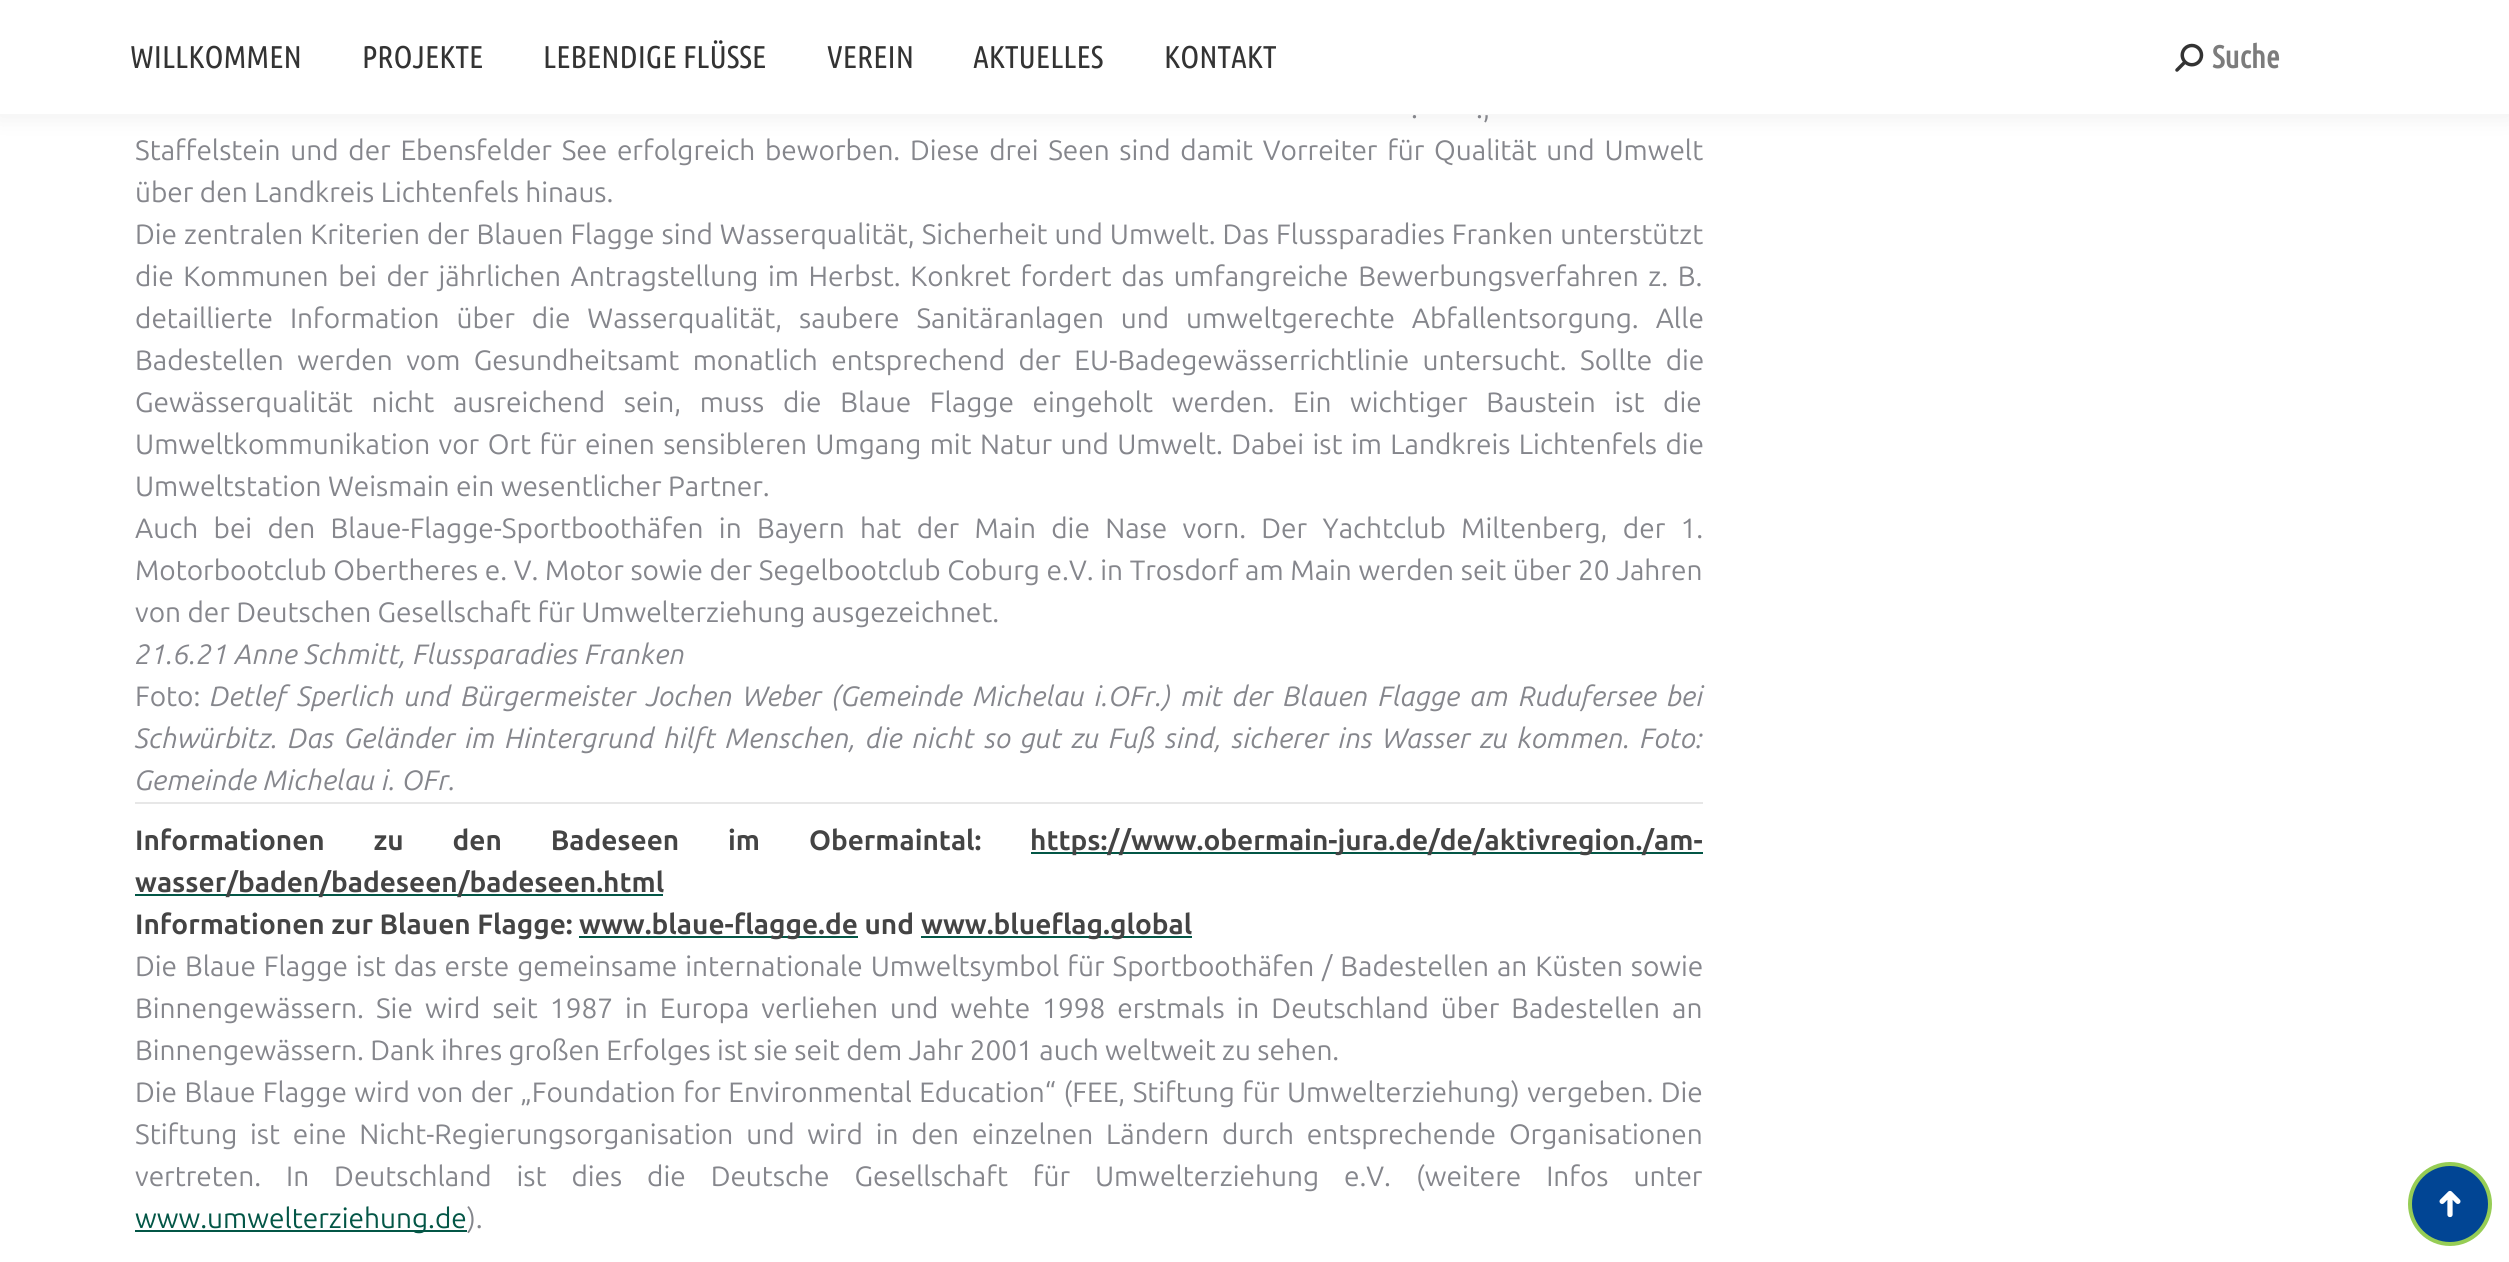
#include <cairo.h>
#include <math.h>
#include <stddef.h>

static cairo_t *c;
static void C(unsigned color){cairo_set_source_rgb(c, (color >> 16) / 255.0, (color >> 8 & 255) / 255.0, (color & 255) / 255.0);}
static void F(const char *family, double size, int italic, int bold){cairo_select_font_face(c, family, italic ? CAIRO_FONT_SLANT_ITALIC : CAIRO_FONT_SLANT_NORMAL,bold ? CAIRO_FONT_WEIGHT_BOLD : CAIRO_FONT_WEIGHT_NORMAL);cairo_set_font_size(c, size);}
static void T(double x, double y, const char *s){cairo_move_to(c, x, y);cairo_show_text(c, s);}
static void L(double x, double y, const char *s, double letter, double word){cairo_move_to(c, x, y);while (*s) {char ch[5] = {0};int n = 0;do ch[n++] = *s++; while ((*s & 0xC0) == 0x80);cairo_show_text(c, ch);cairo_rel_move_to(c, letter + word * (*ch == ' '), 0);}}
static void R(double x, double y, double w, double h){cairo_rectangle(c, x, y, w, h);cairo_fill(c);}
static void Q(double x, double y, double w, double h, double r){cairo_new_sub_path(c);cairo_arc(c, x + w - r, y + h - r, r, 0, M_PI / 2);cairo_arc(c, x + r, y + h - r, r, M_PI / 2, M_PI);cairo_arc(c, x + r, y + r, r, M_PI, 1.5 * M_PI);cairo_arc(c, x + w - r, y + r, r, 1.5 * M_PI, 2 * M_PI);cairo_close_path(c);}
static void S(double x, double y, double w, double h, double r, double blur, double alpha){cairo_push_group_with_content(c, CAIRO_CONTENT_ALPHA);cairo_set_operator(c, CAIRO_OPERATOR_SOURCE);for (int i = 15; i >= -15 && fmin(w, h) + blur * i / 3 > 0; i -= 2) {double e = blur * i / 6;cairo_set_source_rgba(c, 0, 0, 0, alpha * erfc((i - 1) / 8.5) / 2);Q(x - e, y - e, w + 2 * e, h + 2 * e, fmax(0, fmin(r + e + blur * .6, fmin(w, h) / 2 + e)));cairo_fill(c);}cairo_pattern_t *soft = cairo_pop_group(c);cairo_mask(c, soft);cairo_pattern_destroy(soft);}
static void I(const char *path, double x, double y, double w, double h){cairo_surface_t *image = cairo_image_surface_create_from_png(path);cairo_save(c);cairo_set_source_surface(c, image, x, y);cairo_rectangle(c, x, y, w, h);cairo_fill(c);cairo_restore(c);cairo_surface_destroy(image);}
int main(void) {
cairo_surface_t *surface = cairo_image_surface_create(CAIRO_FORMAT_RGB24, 2509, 1262);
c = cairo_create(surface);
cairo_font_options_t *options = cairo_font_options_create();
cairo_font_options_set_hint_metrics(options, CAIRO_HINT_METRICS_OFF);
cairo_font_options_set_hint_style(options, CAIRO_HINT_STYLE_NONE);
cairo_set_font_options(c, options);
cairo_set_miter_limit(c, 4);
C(0xffffff);
cairo_paint(c);
C(0x000000);
S(-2,-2,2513,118,0,13,.07);
C(0xffffff);
R(0,0,2509,114);
F("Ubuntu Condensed",31.5,0,0);
C(0x333333);
T(130,68,"WILLKOMMEN");
T(362,68,"PROJEKTE");
T(543,68,"LEBENDIGE FLÜSSE");
T(827,68,"VEREIN");
T(973,68,"AKTUELLES");
T(1164,68,"KONTAKT");
I("1.png",2175,43,29,29);
F("Ubuntu Condensed",31.5,0,1);
C(0x7c7c7c);
T(2212,68,"Suche");
F("Ubuntu",28,0,0);
C(0x85868c);
L(1411,118,".",0,5);
L(1476,118,".,",0,5);
L(135,160,"Staffelstein und der Ebensfelder See erfolgreich beworben. Diese drei Seen sind damit Vorreiter für Qualität und Umwelt",0,3.25);
T(135,202,"über den Landkreis Lichtenfels hinaus.");
L(135,244,"Die zentralen Kriterien der Blauen Flagge sind Wasserqualität, Sicherheit und Umwelt. Das Flussparadies Franken unterstützt",0,.6);
L(135,286,"die Kommunen bei der jährlichen Antragstellung im Herbst. Konkret fordert das umfangreiche Bewerbungsverfahren z. B.",0,3.25);
L(135,328,"detaillierte Information über die Wasserqualität, saubere Sanitäranlagen und umweltgerechte Abfallentsorgung. Alle",0,10.5);
L(135,370,"Badestellen werden vom Gesundheitsamt monatlich entsprechend der EU-Badegewässerrichtlinie untersucht. Sollte die",0,7);
L(135,412,"Gewässerqualität nicht ausreichend sein, muss die Blaue Flagge eingeholt werden. Ein wichtiger Baustein ist die",0,12.25);
L(135,454,"Umweltkommunikation vor Ort für einen sensibleren Umgang mit Natur und Umwelt. Dabei ist im Landkreis Lichtenfels die",0,2);
T(135,496,"Umweltstation Weismain ein wesentlicher Partner.");
L(135,538,"Auch bei den Blaue-Flagge-Sportboothäfen in Bayern hat der Main die Nase vorn. Der Yachtclub Miltenberg, der 1.",0,8.9);
L(135,580,"Motorbootclub Obertheres e. V. Motor sowie der Segelbootclub Coburg e.V. in Trosdorf am Main werden seit über 20 Jahren",0,.25);
T(135,622,"von der Deutschen Gesellschaft für Umwelterziehung ausgezeichnet.");
F("Ubuntu",28,1,0);
T(135,664,"21.6.21 Anne Schmitt, Flussparadies Franken");
F("Ubuntu",28,0,0);
T(135,706,"Foto:");
F("Ubuntu",28,1,0);
L(210,706,"Detlef Sperlich und Bürgermeister Jochen Weber",0,3.5);
L(832,706,"(Gemeinde Michelau i.OFr.) mit der Blauen Flagge am Rudufersee bei",0,3.5);
L(135,748,"Schwürbitz. Das Geländer im Hintergrund hilft Menschen, die nicht so gut zu Fuß sind, sicherer ins Wasser zu kommen. Foto:",0,3.1);
T(135,790,"Gemeinde Michelau i. OFr.");
C(0xe7e7e7);
R(135,802,1568,2);
F("Ubuntu",28,0,1);
C(0x444444);
L(135,850,"Informationen zu den Badeseen im Obermaintal:",0,42.25);
C(0x035646);
R(1031,852,672,2);
C(0x444444);
T(1030,850,"https://www.obermain-jura.de/de/aktivregion./am-");
C(0x035646);
R(135,894,528,2);
C(0x444444);
T(135,892,"wasser/baden/badeseen/badeseen.html");
T(135,934,"Informationen zur Blauen Flagge:");
C(0x035646);
R(579,936,279,2);
C(0x444444);
T(579,934,"www.blaue-flagge.de und");
C(0x035646);
R(921,936,271,2);
C(0x444444);
T(921,934,"www.blueflag.global");
F("Ubuntu",28,0,0);
C(0x85868c);
L(135,976,"Die Blaue Flagge ist das erste gemeinsame internationale Umweltsymbol für Sportboothäfen / Badestellen an Küsten sowie",0,1.5);
L(135,1018,"Binnengewässern. Sie wird seit 1987 in Europa verliehen und wehte 1998 erstmals in Deutschland über Badestellen an",0,5.6);
T(135,1060,"Binnengewässern. Dank ihres großen Erfolges ist sie seit dem Jahr 2001 auch weltweit zu sehen.");
L(135,1102,"Die Blaue Flagge wird von der „Foundation for Environmental Education“ (FEE, Stiftung für Umwelterziehung) vergeben. Die",0,1);
L(135,1144,"Stiftung ist eine Nicht-Regierungsorganisation und wird in den einzelnen Ländern durch entsprechende Organisationen",0,6.4);
L(135,1186,"vertreten. In Deutschland ist dies die Deutsche Gesellschaft für Umwelterziehung e.V. (weitere Infos unter",0,18.5);
C(0x035646);
R(135,1230,332,2);
T(135,1228,"www.umwelterziehung.de");
C(0x85868c);
T(467,1228,").");
C(0x014594);
cairo_new_path(c);
cairo_arc(c,2450,1204,40,0,2 * M_PI);
cairo_fill_preserve(c);
C(0x96cd55);
cairo_set_line_width(c,4);
cairo_stroke(c);
I("2.png",2439,1190,22,28);
cairo_surface_write_to_png(surface, "o.png");
cairo_font_options_destroy(options);
cairo_destroy(c);
cairo_surface_destroy(surface);
return 0;
}
